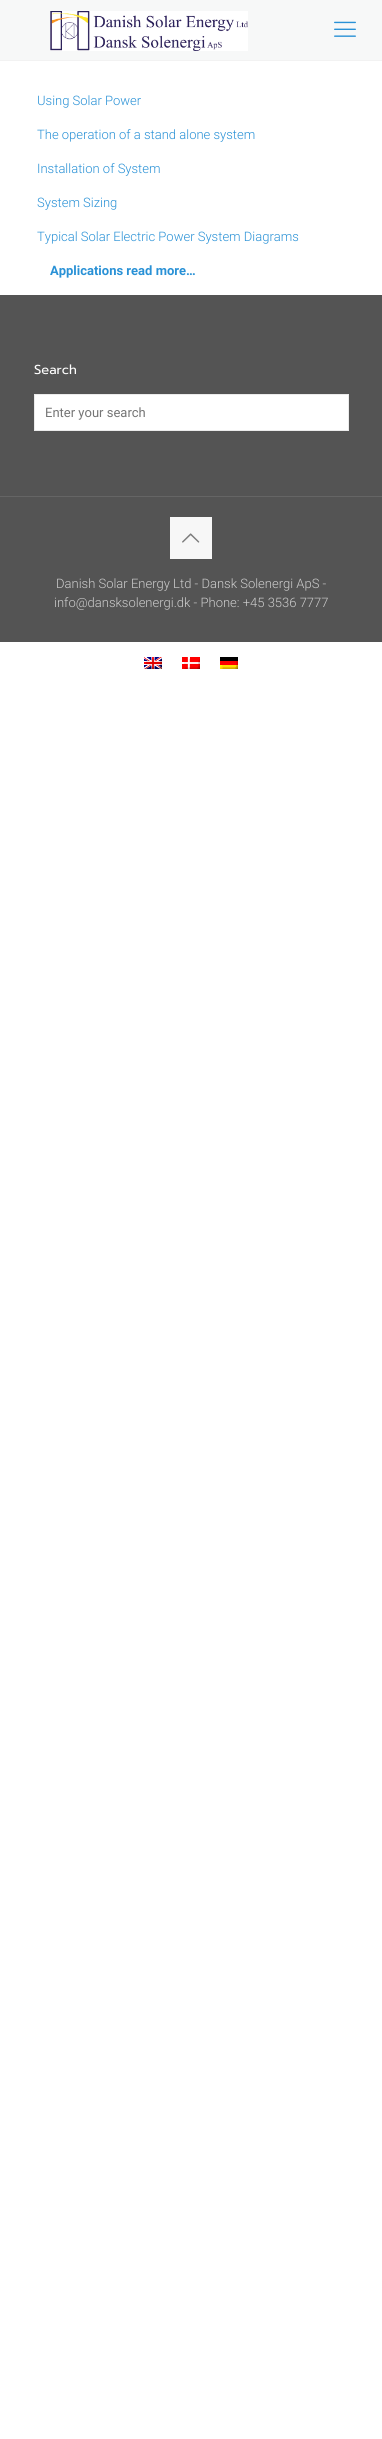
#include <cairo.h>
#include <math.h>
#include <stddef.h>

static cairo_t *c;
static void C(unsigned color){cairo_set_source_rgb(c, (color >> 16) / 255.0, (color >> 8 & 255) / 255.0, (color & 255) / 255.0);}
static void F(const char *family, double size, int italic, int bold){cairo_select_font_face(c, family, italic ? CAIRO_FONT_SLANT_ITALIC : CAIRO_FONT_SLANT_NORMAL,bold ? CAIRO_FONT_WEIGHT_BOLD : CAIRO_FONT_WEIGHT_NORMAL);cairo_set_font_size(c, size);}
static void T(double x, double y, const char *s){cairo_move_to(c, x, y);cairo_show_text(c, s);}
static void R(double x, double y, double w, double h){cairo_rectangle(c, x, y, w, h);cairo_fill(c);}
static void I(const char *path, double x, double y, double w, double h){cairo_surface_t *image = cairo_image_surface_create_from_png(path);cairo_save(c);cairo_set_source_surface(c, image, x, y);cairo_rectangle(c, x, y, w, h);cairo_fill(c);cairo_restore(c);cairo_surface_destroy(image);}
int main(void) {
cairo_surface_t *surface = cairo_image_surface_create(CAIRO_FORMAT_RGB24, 382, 2439);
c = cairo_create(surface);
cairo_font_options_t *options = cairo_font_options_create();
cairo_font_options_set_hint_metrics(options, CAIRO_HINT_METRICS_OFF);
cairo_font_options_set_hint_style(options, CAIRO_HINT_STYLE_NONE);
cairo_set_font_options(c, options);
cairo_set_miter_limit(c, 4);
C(0xffffff);
cairo_paint(c);
C(0xf7f8f8);
R(0,0,382,60);
C(0xf2f2f2);
R(0,60,382,1);
I("1.png",50,11,198,40);
I("2.png",334,21,22,16);
F("Roboto Light",13,0,0);
C(0x2991d6);
T(37,105,"Using Solar Power");
T(37,139,"The operation of a stand alone system");
T(37,173,"Installation of System");
T(37,207,"System Sizing");
T(37,241,"Typical Solar Electric Power System Diagrams");
F("Roboto",13,0,1);
T(50,275,"Applications read more…");
C(0x545454);
R(0,295,382,347);
F("Prompt",13,0,0);
C(0xffffff);
T(34,374,"Search");
cairo_rectangle(c,34.5,394.5,314,36);
cairo_fill_preserve(c);
C(0xebebeb);
cairo_set_line_width(c,1);
cairo_stroke(c);
F("Roboto",13,0,0);
C(0x757575);
T(45,417,"Enter your search");
C(0x656565);
R(0,496,382,1);
C(0xf7f7f7);
R(170,517,42,42);
I("3.png",182,533,18,10);
F("Roboto Light",13,0,0);
C(0xcccccc);
T(56,588,"Danish Solar Energy Ltd - Dansk Solenergi ApS -");
T(54,607,"info@dansksolenergi.dk - Phone: +45 3536 7777");
I("4.png",144,657,18,12);
I("5.png",182,657,18,12);
I("6.png",220,657,18,12);
cairo_surface_write_to_png(surface, "o.png");
cairo_font_options_destroy(options);
cairo_destroy(c);
cairo_surface_destroy(surface);
return 0;
}
